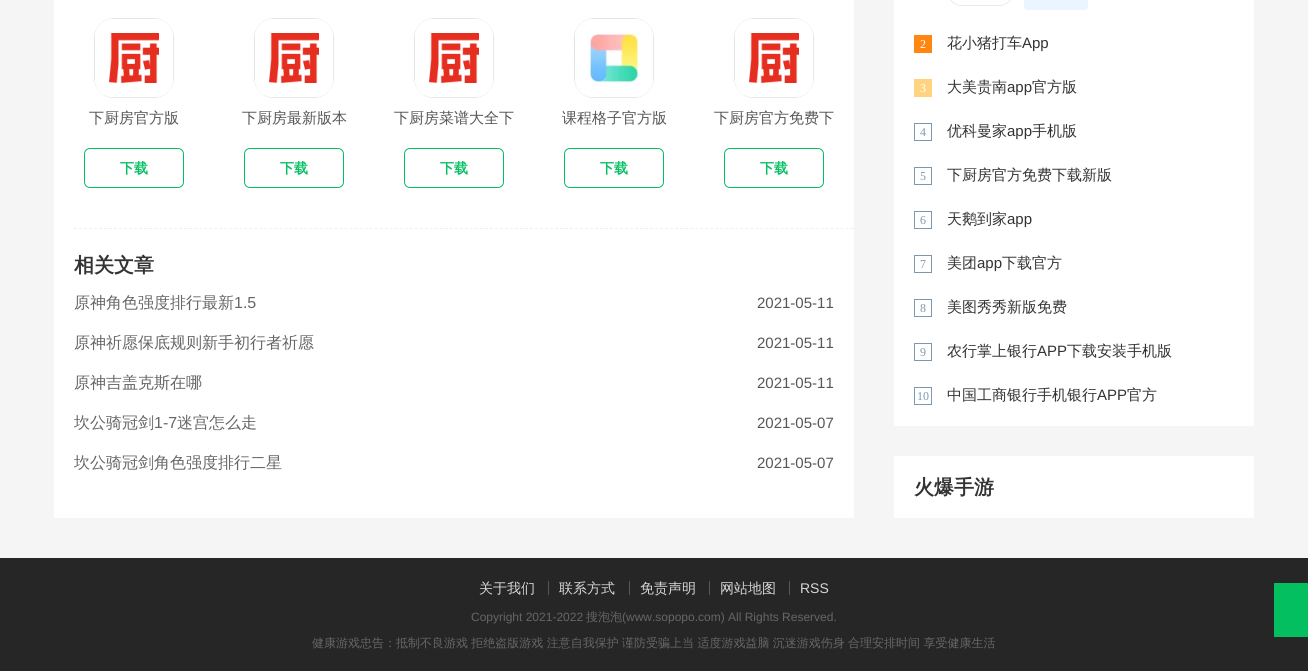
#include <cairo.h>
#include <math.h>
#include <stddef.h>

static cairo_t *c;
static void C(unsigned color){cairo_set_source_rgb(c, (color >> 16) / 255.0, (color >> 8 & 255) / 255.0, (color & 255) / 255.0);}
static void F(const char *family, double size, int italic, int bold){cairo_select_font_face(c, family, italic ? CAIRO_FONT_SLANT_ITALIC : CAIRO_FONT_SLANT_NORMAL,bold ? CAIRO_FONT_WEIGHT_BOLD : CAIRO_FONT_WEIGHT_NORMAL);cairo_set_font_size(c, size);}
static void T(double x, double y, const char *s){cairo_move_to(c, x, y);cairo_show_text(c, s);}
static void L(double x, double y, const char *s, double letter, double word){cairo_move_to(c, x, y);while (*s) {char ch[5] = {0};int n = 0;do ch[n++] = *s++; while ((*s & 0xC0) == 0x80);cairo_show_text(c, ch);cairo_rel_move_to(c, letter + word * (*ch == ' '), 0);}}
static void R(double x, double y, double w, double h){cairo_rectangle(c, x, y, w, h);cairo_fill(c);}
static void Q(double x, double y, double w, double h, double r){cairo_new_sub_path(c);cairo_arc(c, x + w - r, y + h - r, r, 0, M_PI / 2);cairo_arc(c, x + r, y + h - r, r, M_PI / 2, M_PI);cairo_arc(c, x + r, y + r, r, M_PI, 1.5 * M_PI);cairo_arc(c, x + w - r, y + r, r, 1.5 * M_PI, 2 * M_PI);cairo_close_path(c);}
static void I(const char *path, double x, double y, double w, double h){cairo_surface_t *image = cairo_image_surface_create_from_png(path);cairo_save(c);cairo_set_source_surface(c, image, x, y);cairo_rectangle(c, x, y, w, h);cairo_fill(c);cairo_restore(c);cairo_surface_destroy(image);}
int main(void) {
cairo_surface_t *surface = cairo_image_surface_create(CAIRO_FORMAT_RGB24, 1308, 671);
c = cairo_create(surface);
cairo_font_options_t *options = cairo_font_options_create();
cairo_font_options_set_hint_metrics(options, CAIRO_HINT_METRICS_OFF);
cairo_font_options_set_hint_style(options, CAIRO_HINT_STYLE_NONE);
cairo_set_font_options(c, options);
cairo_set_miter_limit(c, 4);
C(0xf5f5f5);
cairo_paint(c);
C(0xffffff);
R(54,0,800,518);
cairo_save(c);
cairo_rectangle(c,54,0,800,518);
cairo_clip(c);
cairo_new_path(c);
cairo_move_to(c,74,228.5);
cairo_line_to(c,954,228.5);
C(0xedeff5);
cairo_set_line_width(c,1);
cairo_set_dash(c,(double[]){3,2.01},2,0);
cairo_stroke(c);
cairo_restore(c);
I("1.png",94,18,80,80);
F("WenQuanYi Zen Hei Medium",15,0,0);
C(0x565656);
T(89,123,"下厨房官方版");
Q(84.5,148.5,99,39,5.5);
C(0x03bf60);
cairo_set_line_width(c,1);
cairo_stroke(c);
F("WenQuanYi Zen Hei",14,0,1);
T(120,173,"下载");
I("2.png",254,18,80,80);
F("WenQuanYi Zen Hei Medium",15,0,0);
C(0x565656);
T(242,123,"下厨房最新版本");
Q(244.5,148.5,99,39,5.5);
C(0x03bf60);
cairo_stroke(c);
F("WenQuanYi Zen Hei",14,0,1);
T(280,173,"下载");
I("3.png",414,18,80,80);
F("WenQuanYi Zen Hei Medium",15,0,0);
C(0x565656);
T(394,123,"下厨房菜谱大全下");
Q(404.5,148.5,99,39,5.5);
C(0x03bf60);
cairo_stroke(c);
F("WenQuanYi Zen Hei",14,0,1);
T(440,173,"下载");
I("4.png",574,18,80,80);
F("WenQuanYi Zen Hei Medium",15,0,0);
C(0x565656);
T(562,123,"课程格子官方版");
Q(564.5,148.5,99,39,5.5);
C(0x03bf60);
cairo_stroke(c);
F("WenQuanYi Zen Hei",14,0,1);
T(600,173,"下载");
I("5.png",734,18,80,80);
F("WenQuanYi Zen Hei Medium",15,0,0);
C(0x565656);
T(714,123,"下厨房官方免费下");
Q(724.5,148.5,99,39,5.5);
C(0x03bf60);
cairo_stroke(c);
F("WenQuanYi Zen Hei",14,0,1);
T(760,173,"下载");
F("WenQuanYi Zen Hei",20,0,1);
C(0x333333);
T(74,272,"相关文章");
F("WenQuanYi Zen Hei Medium",16,0,0);
C(0x666666);
T(74,308,"原神角色强度排行最新");
F("Liberation Sans",16,0,0);
T(234,308,"1.5");
F("Liberation Sans",15,0,0);
C(0x565656);
T(757,308,"2021-05-11");
F("WenQuanYi Zen Hei Medium",16,0,0);
C(0x666666);
T(74,348,"原神祈愿保底规则新手初行者祈愿");
F("Liberation Sans",15,0,0);
C(0x565656);
T(757,348,"2021-05-11");
F("WenQuanYi Zen Hei Medium",16,0,0);
C(0x666666);
T(74,388,"原神吉盖克斯在哪");
F("Liberation Sans",15,0,0);
C(0x565656);
T(757,388,"2021-05-11");
F("WenQuanYi Zen Hei Medium",16,0,0);
C(0x666666);
T(74,428,"坎公骑冠剑");
F("Liberation Sans",16,0,0);
T(154,428,"1-7");
F("WenQuanYi Zen Hei Medium",16,0,0);
T(177,428,"迷宫怎么走");
F("Liberation Sans",15,0,0);
C(0x565656);
T(757,428,"2021-05-07");
F("WenQuanYi Zen Hei Medium",16,0,0);
C(0x666666);
T(74,468,"坎公骑冠剑角色强度排行二星");
F("Liberation Sans",15,0,0);
C(0x565656);
T(757,468,"2021-05-07");
C(0xffffff);
R(894,0,360,426);
I("6.png",950,0,61,6);
C(0xebf5ff);
Q(1024,-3,64,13,3);
cairo_fill(c);
C(0xff8610);
R(914,35,18,18);
F("Liberation Serif",12,0,0);
C(0xffffff);
T(920,48,"2");
F("WenQuanYi Zen Hei Medium",15,0,0);
C(0x333333);
T(947,48,"花小猪打车");
F("Liberation Sans",15,0,0);
T(1022,48,"App");
C(0xffd37f);
R(914,79,18,18);
F("Liberation Serif",12,0,0);
C(0xffffff);
T(920,92,"3");
F("WenQuanYi Zen Hei Medium",15,0,0);
C(0x333333);
T(947,92,"大美贵南");
F("Liberation Sans",15,0,0);
T(1007,92,"app");
F("WenQuanYi Zen Hei Medium",15,0,0);
T(1032,92,"官方版");
cairo_rectangle(c,914.5,123.5,17,17);
C(0x7d99b2);
cairo_stroke(c);
F("Liberation Serif",12,0,0);
T(920,136,"4");
F("WenQuanYi Zen Hei Medium",15,0,0);
C(0x333333);
T(947,136,"优科曼家");
F("Liberation Sans",15,0,0);
T(1007,136,"app");
F("WenQuanYi Zen Hei Medium",15,0,0);
T(1032,136,"手机版");
cairo_rectangle(c,914.5,167.5,17,17);
C(0x7d99b2);
cairo_stroke(c);
F("Liberation Serif",12,0,0);
T(920,180,"5");
F("WenQuanYi Zen Hei Medium",15,0,0);
C(0x333333);
T(947,180,"下厨房官方免费下载新版");
cairo_rectangle(c,914.5,211.5,17,17);
C(0x7d99b2);
cairo_stroke(c);
F("Liberation Serif",12,0,0);
T(920,224,"6");
F("WenQuanYi Zen Hei Medium",15,0,0);
C(0x333333);
T(947,224,"天鹅到家");
F("Liberation Sans",15,0,0);
T(1007,224,"app");
cairo_rectangle(c,914.5,255.5,17,17);
C(0x7d99b2);
cairo_stroke(c);
F("Liberation Serif",12,0,0);
T(920,268,"7");
F("WenQuanYi Zen Hei Medium",15,0,0);
C(0x333333);
T(947,268,"美团");
F("Liberation Sans",15,0,0);
T(977,268,"app");
F("WenQuanYi Zen Hei Medium",15,0,0);
T(1002,268,"下载官方");
cairo_rectangle(c,914.5,299.5,17,17);
C(0x7d99b2);
cairo_stroke(c);
F("Liberation Serif",12,0,0);
T(920,312,"8");
F("WenQuanYi Zen Hei Medium",15,0,0);
C(0x333333);
T(947,312,"美图秀秀新版免费");
cairo_rectangle(c,914.5,343.5,17,17);
C(0x7d99b2);
cairo_stroke(c);
F("Liberation Serif",12,0,0);
T(920,356,"9");
F("WenQuanYi Zen Hei Medium",15,0,0);
C(0x333333);
T(947,356,"农行掌上银行");
F("Liberation Sans",15,0,0);
T(1037,356,"APP");
F("WenQuanYi Zen Hei Medium",15,0,0);
T(1067,356,"下载安装手机版");
cairo_rectangle(c,914.5,387.5,17,17);
C(0x7d99b2);
cairo_stroke(c);
F("Liberation Serif",12,0,0);
T(917,400,"10");
F("WenQuanYi Zen Hei Medium",15,0,0);
C(0x333333);
T(947,400,"中国工商银行手机银行");
F("Liberation Sans",15,0,0);
T(1097,400,"APP");
F("WenQuanYi Zen Hei Medium",15,0,0);
T(1127,400,"官方");
C(0xffffff);
R(894,456,360,62);
F("WenQuanYi Zen Hei",20,0,1);
C(0x333333);
T(914,494,"火爆手游");
C(0x262626);
R(0,558,1308,113);
F("WenQuanYi Zen Hei Medium",14,0,0);
C(0xd7d7d7);
T(479,593,"关于我们");
C(0x565656);
R(548,581,1,14);
C(0xd7d7d7);
T(559,593,"联系方式");
C(0x565656);
R(629,581,1,14);
C(0xd7d7d7);
T(640,593,"免责声明");
C(0x565656);
R(709,581,1,14);
C(0xd7d7d7);
T(720,593,"网站地图");
C(0x565656);
R(789,581,1,14);
F("Liberation Sans",14,0,0);
C(0xd7d7d7);
T(800,593,"RSS");
F("Liberation Sans",12,0,0);
C(0x666666);
T(471,621,"Copyright 2021-2022");
F("WenQuanYi Zen Hei Medium",12,0,0);
T(586,621,"搜泡泡");
F("Liberation Sans",12,0,0);
T(622,621,"(www.sopopo.com) All Rights Reserved.");
F("WenQuanYi Zen Hei Medium",12,0,0);
L(312,647,"健康游戏忠告：抵制不良游戏 拒绝盗版游戏 注意自我保护 谨防受骗上当 适度游戏益脑 沉迷游戏伤身 合理安排时间 享受健康生活",0,-.25);
C(0x03bf60);
R(1274,583,34,54);
cairo_surface_write_to_png(surface, "o.png");
cairo_font_options_destroy(options);
cairo_destroy(c);
cairo_surface_destroy(surface);
return 0;
}
